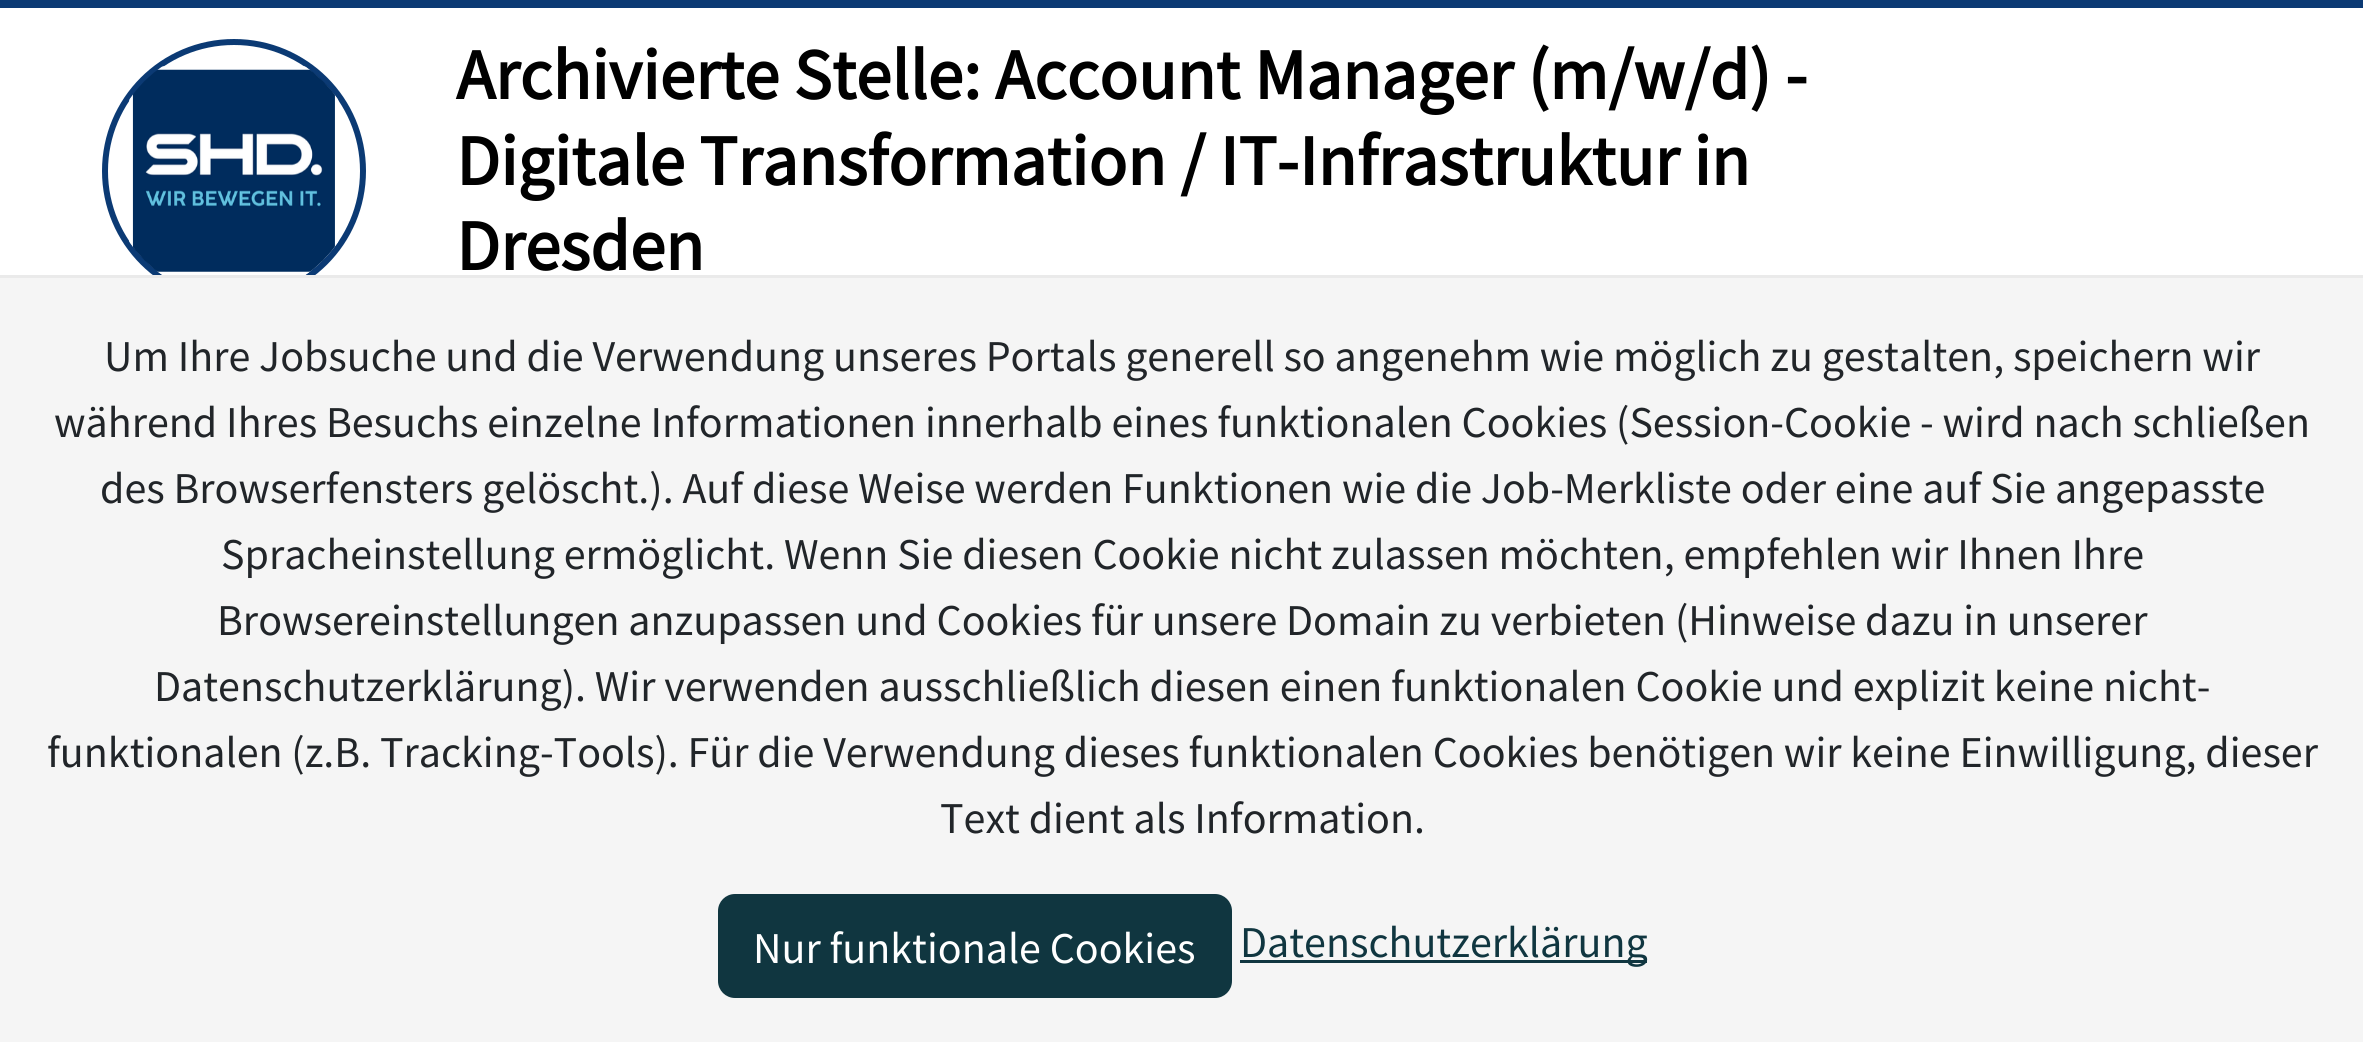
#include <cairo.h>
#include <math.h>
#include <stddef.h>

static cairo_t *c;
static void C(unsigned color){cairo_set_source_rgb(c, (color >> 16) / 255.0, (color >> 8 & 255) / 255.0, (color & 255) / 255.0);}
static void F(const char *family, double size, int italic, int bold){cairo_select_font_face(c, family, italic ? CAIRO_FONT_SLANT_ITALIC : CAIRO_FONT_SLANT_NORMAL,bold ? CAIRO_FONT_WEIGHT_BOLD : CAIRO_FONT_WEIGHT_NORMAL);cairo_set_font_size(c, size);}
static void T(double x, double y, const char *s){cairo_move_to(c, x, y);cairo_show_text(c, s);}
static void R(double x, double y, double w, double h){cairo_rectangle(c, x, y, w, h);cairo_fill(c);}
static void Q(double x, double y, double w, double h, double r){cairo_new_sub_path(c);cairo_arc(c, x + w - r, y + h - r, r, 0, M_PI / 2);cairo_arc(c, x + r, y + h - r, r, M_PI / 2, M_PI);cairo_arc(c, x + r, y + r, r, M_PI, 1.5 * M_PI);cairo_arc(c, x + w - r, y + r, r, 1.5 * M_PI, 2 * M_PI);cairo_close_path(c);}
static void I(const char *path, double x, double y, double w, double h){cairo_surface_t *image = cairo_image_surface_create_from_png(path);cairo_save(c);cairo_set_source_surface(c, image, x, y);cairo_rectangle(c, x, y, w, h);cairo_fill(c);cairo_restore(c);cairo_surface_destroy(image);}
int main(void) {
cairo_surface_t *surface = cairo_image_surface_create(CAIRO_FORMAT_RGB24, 2363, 1042);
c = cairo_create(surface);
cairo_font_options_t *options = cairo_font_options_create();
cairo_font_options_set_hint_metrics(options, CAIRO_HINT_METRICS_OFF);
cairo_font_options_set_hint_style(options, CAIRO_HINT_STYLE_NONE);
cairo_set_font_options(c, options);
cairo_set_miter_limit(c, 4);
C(0xffffff);
cairo_paint(c);
C(0x0b3a74);
R(0,0,2363,8);
cairo_arc(c,234,171,129,0,2 * M_PI);
cairo_set_line_width(c,6);
cairo_stroke(c);
I("1.png",129,66,210,209);
F("Source Sans Pro",71.4,0,1);
C(0x000000);
T(456,99,"Archivierte Stelle: Account Manager (m/w/d) -");
T(456,185,"Digitale Transformation / IT-Infrastruktur in");
T(456,270,"Dresden");
C(0xf5f5f5);
R(0,278,2363,764);
C(0xeaeaea);
R(0,275,2363,3);
F("Source Sans Pro",44,0,0);
C(0x212529);
T(104,371,"Um Ihre Jobsuche und die Verwendung unseres Portals generell so angenehm wie möglich zu gestalten, speichern wir");
T(54,437,"während Ihres Besuchs einzelne Informationen innerhalb eines funktionalen Cookies (Session-Cookie - wird nach schließen");
T(100,503,"des Browserfensters gelöscht.). Auf diese Weise werden Funktionen wie die Job-Merkliste oder eine auf Sie angepasste");
T(221,569,"Spracheinstellung ermöglicht. Wenn Sie diesen Cookie nicht zulassen möchten, empfehlen wir Ihnen Ihre");
T(217,635,"Browsereinstellungen anzupassen und Cookies für unsere Domain zu verbieten (Hinweise dazu in unserer");
T(154,701,"Datenschutzerklärung). Wir verwenden ausschließlich diesen einen funktionalen Cookie und explizit keine nicht-");
T(47,767,"funktionalen (z.B. Tracking-Tools). Für die Verwendung dieses funktionalen Cookies benötigen wir keine Einwilligung, dieser");
T(940,833,"Text dient als Information.");
C(0x103640);
Q(719.5,895.5,511,101,15.5);
cairo_fill_preserve(c);
cairo_set_line_width(c,3);
cairo_stroke(c);
C(0xffffff);
T(753,963,"Nur funktionale Cookies");
C(0x103640);
R(1240,960,407,3);
T(1240,957,"Datenschutzerklärung");
cairo_surface_write_to_png(surface, "o.png");
cairo_font_options_destroy(options);
cairo_destroy(c);
cairo_surface_destroy(surface);
return 0;
}
